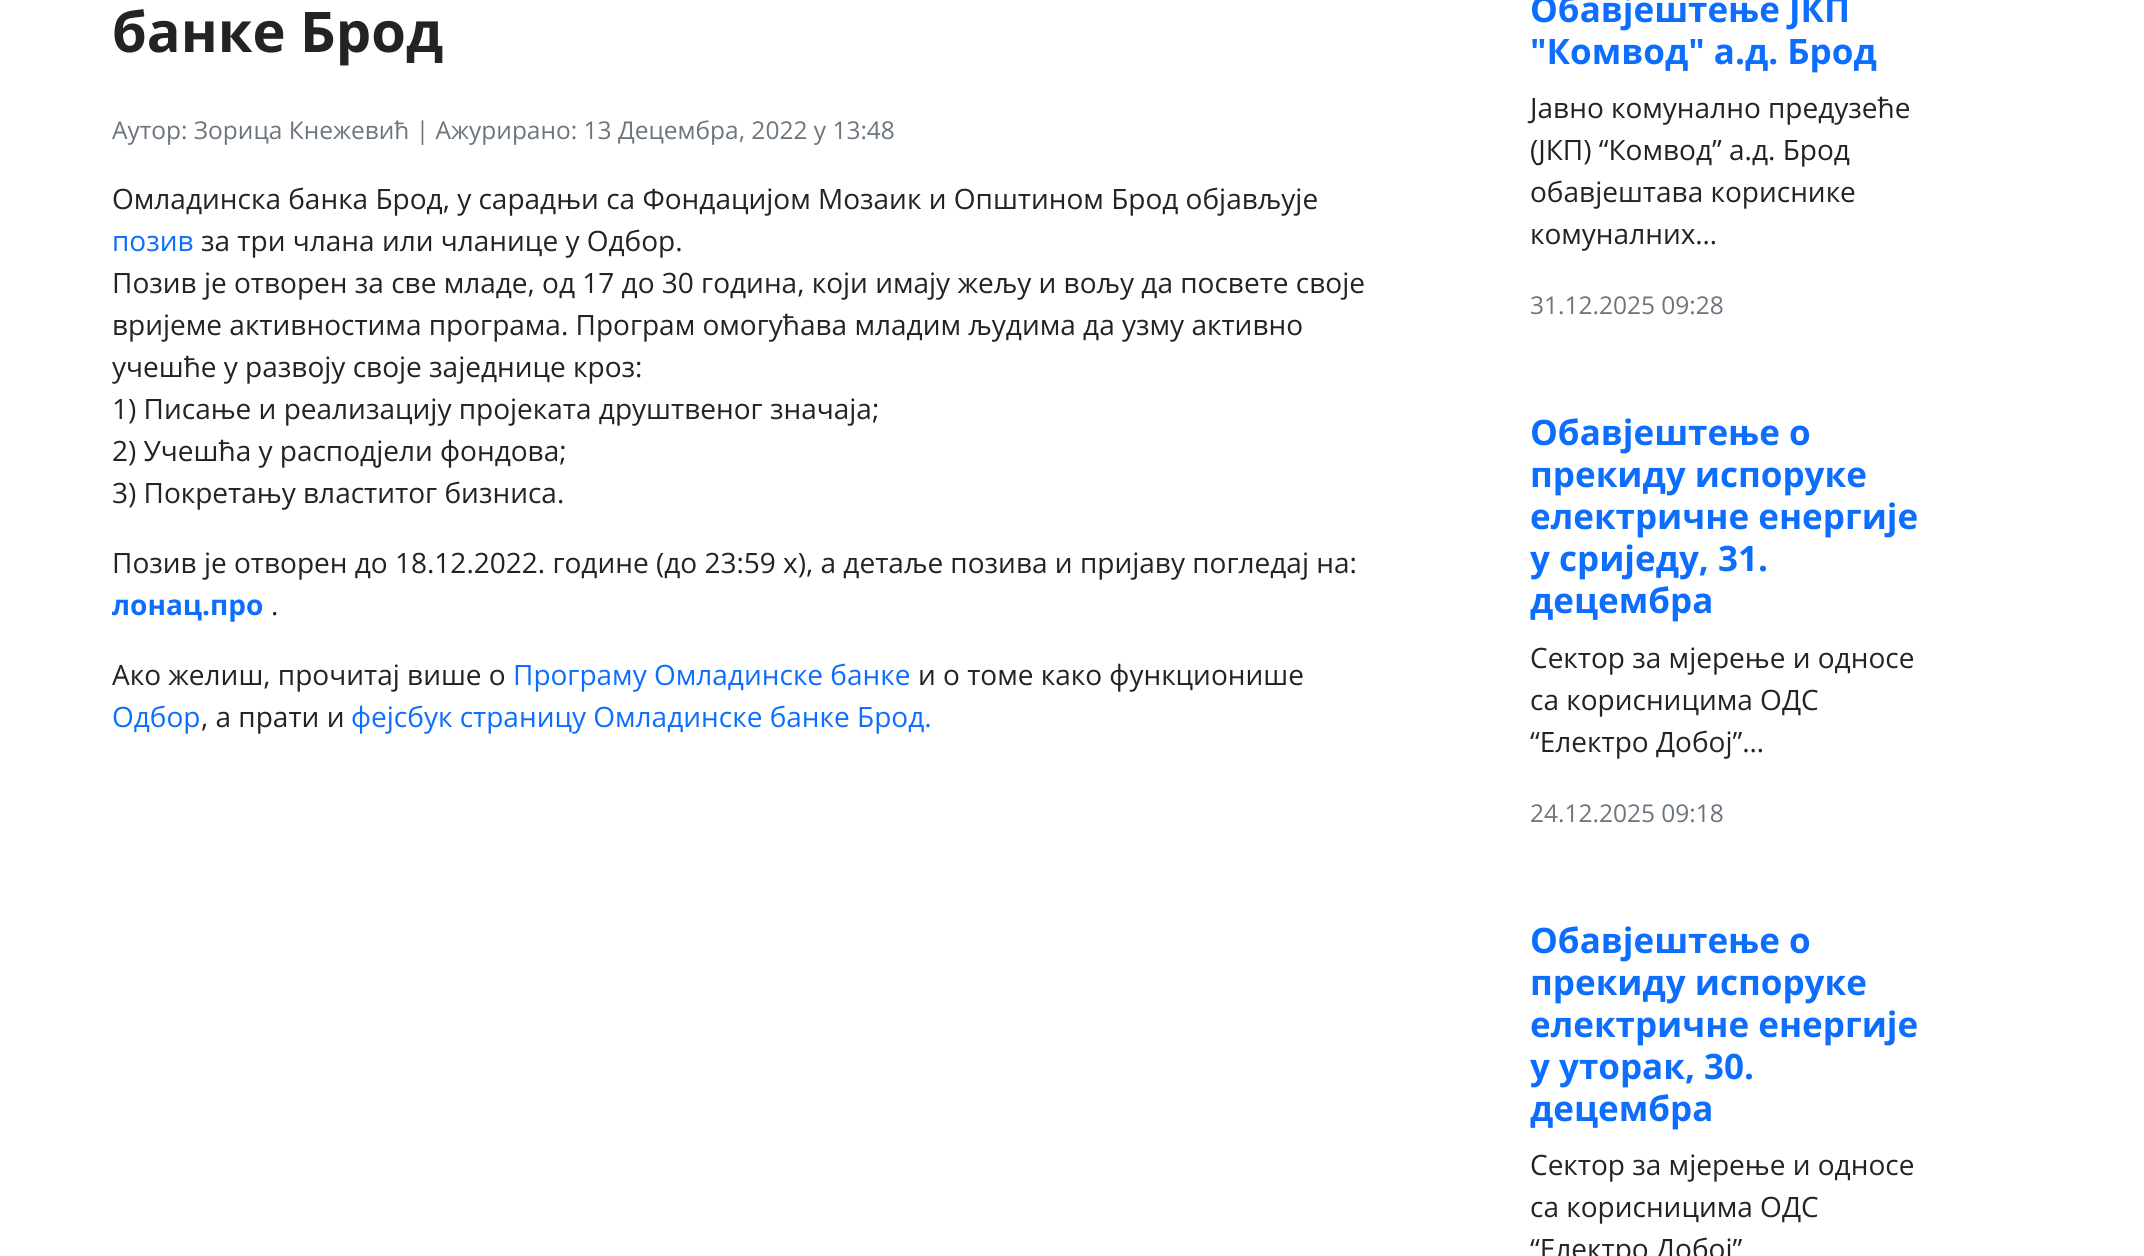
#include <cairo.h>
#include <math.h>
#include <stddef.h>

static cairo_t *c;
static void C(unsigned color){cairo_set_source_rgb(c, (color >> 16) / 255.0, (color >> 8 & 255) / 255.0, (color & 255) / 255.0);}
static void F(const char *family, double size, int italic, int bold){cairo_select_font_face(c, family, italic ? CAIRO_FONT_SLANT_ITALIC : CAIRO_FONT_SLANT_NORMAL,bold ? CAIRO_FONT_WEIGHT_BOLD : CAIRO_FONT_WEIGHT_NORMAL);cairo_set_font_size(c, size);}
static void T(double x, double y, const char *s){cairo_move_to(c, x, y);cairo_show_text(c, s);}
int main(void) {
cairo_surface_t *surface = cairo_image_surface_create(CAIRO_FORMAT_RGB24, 2144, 1256);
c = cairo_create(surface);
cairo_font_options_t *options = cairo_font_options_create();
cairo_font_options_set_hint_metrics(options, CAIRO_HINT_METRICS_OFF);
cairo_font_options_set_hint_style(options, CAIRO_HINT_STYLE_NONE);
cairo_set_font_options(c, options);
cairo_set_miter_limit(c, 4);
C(0xffffff);
cairo_paint(c);
F("Open Sans",56,0,1);
C(0x232323);
T(112,52,"банке Брод");
F("Open Sans",24.5,0,0);
C(0x6c757d);
T(112,139,"Аутор: Зорица Кнежевић | Ажурирано: 13 Децембра, 2022 у 13:48");
F("Open Sans",28,0,0);
C(0x232323);
T(112,209,"Омладинска банка Брод, у сарадњи са Фондацијом Мозаик и Општином Брод објављује");
C(0x0d6efd);
T(112,251,"позив");
C(0x232323);
T(201,251,"за три члана или чланице у Одбор.");
T(112,293,"Позив је отворен за све младе, од 17 до 30 година, који имају жељу и вољу да посвете своје");
T(112,335,"вријеме активностима програма. Програм омогућава младим људима да узму активно");
T(112,377,"учешће у развоју своје заједнице кроз:");
T(112,419,"1) Писање и реализацију пројеката друштвеног значаја;");
T(112,461,"2) Учешћа у расподјели фондова;");
T(112,503,"3) Покретању властитог бизниса.");
T(112,573,"Позив је отворен до 18.12.2022. године (до 23:59 х), а детаље позива и пријаву погледај на:");
F("Open Sans",28,0,1);
C(0x0d6efd);
T(112,615,"лонац.про");
F("Open Sans",28,0,0);
C(0x232323);
T(271,615,".");
T(112,685,"Ако желиш, прочитај више о");
C(0x0d6efd);
T(513,685,"Програму Омладинске банке");
C(0x232323);
T(918,685,"и о томе како функционише");
C(0x0d6efd);
T(112,727,"Одбор");
C(0x232323);
T(201,727,", а прати и");
C(0x0d6efd);
T(351,727,"фејсбук страницу Омладинске банке Брод.");
F("Open Sans",35,0,1);
T(1530,22,"Обавјештење ЈКП");
T(1530,64,"\"Комвод\" а.д. Брод");
F("Open Sans",28,0,0);
C(0x232323);
T(1530,118,"Јавно комунално предузеће");
T(1530,160,"(ЈКП) “Комвод” а.д. Брод");
T(1530,202,"обавјештава кориснике");
T(1530,244,"комуналних…");
F("Open Sans",24.5,0,0);
C(0x6c757d);
T(1530,314,"31.12.2025 09:28");
F("Open Sans",35,0,1);
C(0x0d6efd);
T(1530,445,"Обавјештење о");
T(1530,487,"прекиду испоруке");
T(1530,529,"електричне енергије");
T(1530,571,"у сриједу, 31.");
T(1530,613,"децембра");
F("Open Sans",28,0,0);
C(0x232323);
T(1530,668,"Сектор за мјерење и односе");
T(1530,710,"са корисницима ОДС");
T(1530,752,"“Електро Добој”…");
F("Open Sans",24.5,0,0);
C(0x6c757d);
T(1530,822,"24.12.2025 09:18");
F("Open Sans",35,0,1);
C(0x0d6efd);
T(1530,953,"Обавјештење о");
T(1530,995,"прекиду испоруке");
T(1530,1037,"електричне енергије");
T(1530,1079,"у уторак, 30.");
T(1530,1121,"децембра");
F("Open Sans",28,0,0);
C(0x232323);
T(1530,1175,"Сектор за мјерење и односе");
T(1530,1217,"са корисницима ОДС");
T(1530,1259,"“Електро Добој”");
cairo_surface_write_to_png(surface, "o.png");
cairo_font_options_destroy(options);
cairo_destroy(c);
cairo_surface_destroy(surface);
return 0;
}
